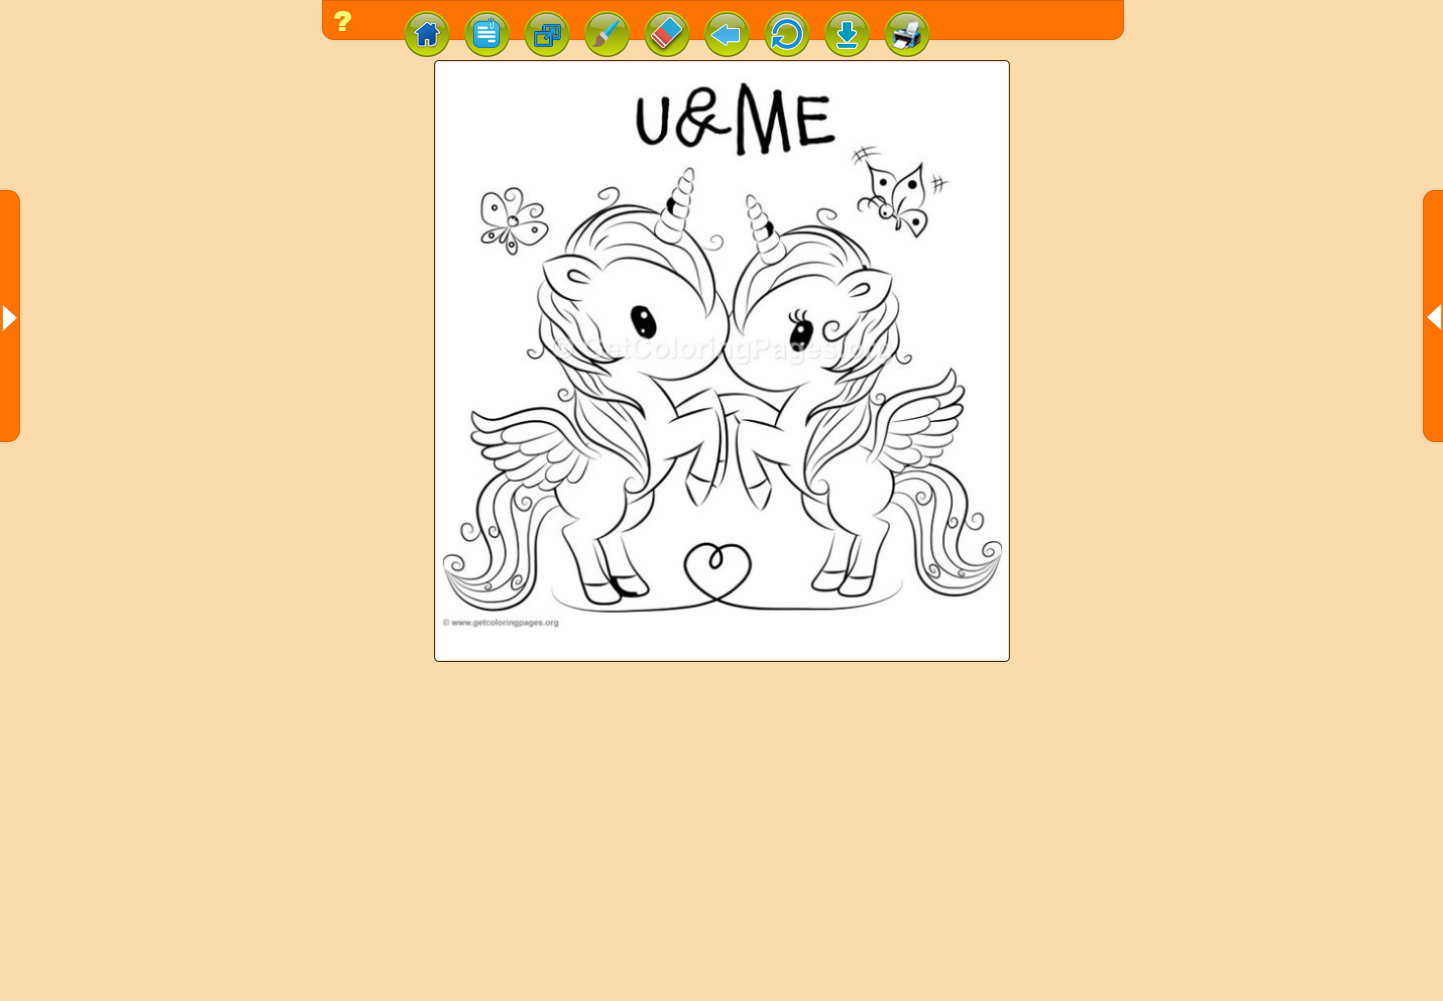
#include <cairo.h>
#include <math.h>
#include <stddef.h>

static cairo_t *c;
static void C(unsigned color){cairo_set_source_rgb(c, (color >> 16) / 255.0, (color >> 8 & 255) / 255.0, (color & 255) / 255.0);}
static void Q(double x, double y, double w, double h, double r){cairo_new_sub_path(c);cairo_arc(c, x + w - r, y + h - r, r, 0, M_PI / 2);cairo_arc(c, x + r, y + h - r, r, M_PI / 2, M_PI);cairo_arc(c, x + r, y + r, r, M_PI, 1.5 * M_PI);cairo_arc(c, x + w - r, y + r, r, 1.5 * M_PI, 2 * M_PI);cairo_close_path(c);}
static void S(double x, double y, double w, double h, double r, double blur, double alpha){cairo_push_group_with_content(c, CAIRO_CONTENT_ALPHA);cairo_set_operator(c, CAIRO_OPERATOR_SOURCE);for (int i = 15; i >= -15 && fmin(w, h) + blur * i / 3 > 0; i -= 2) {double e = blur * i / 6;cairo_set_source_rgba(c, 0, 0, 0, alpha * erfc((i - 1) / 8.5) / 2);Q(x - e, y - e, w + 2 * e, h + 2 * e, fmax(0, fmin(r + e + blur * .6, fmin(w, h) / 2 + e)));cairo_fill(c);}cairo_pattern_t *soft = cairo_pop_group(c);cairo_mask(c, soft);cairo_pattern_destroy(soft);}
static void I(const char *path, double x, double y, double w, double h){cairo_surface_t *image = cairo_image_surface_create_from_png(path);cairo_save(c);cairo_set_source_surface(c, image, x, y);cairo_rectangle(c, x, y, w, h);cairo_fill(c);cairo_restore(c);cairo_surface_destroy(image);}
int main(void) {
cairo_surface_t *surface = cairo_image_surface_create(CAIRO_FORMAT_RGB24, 1443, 1001);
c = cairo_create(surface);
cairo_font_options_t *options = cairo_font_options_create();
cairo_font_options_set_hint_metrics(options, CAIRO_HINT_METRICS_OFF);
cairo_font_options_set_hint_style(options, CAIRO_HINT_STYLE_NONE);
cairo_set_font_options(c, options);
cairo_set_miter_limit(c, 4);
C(0xfbdaac);
cairo_paint(c);
C(0x000000);
S(322,0,802,40,12,2,.11);
C(0xfd7405);
cairo_new_path(c);
cairo_move_to(c,322.5,.5);
cairo_line_to(c,1123.5,.5);
cairo_line_to(c,1123.5,28);
cairo_curve_to(c,1123.5,34.5,1118.5,39.5,1112,39.5);
cairo_line_to(c,334,39.5);
cairo_curve_to(c,327.5,39.5,322.5,34.5,322.5,28);
cairo_close_path(c);
cairo_fill_preserve(c);
C(0xde6605);
cairo_set_line_width(c,1);
cairo_stroke(c);
I("1.png",334,11,18,20);
I("2.png",404,11,46,46);
I("3.png",413,21,28,27);
I("2.png",464,11,46,46);
I("4.png",473,18,27,30);
I("2.png",524,11,46,46);
I("5.png",534,24,27,23);
I("2.png",584,11,46,46);
I("6.png",591,20,28,27);
I("2.png",644,11,46,46);
I("7.png",649,17,35,36);
I("2.png",704,11,46,46);
I("8.png",711,24,29,22);
I("2.png",764,11,46,46);
I("9.png",771,18,32,32);
I("2.png",824,11,46,46);
I("10.png",836,21,22,28);
I("2.png",884,11,46,46);
I("11.png",891,20,30,30);
C(0x000000);
S(-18,190,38,252,12,2,.11);
C(0xfd7405);
cairo_new_path(c);
cairo_move_to(c,-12.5,190.5);
cairo_line_to(c,8,190.5);
cairo_curve_to(c,14.5,190.5,19.5,195.5,19.5,202);
cairo_line_to(c,19.5,430);
cairo_curve_to(c,19.5,436.5,14.5,441.5,8,441.5);
cairo_line_to(c,-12.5,441.5);
cairo_close_path(c);
cairo_fill_preserve(c);
C(0xde6605);
cairo_stroke(c);
I("12.png",2,305,15,26);
Q(434.5,60.5,575,601,4.5);
C(0x333333);
cairo_stroke(c);
I("13.png",436,62,572,598);
C(0x000000);
S(1423,190,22,252,12,2,.11);
C(0xfd7405);
cairo_new_path(c);
cairo_move_to(c,1435,190.5);
cairo_line_to(c,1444.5,190.5);
cairo_line_to(c,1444.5,441.5);
cairo_line_to(c,1435,441.5);
cairo_curve_to(c,1428.5,441.5,1423.5,436.5,1423.5,430);
cairo_line_to(c,1423.5,202);
cairo_curve_to(c,1423.5,195.5,1428.5,190.5,1435,190.5);
cairo_close_path(c);
cairo_fill_preserve(c);
C(0xde6605);
cairo_stroke(c);
I("14.png",1427,304,15,26);
cairo_surface_write_to_png(surface, "o.png");
cairo_font_options_destroy(options);
cairo_destroy(c);
cairo_surface_destroy(surface);
return 0;
}
